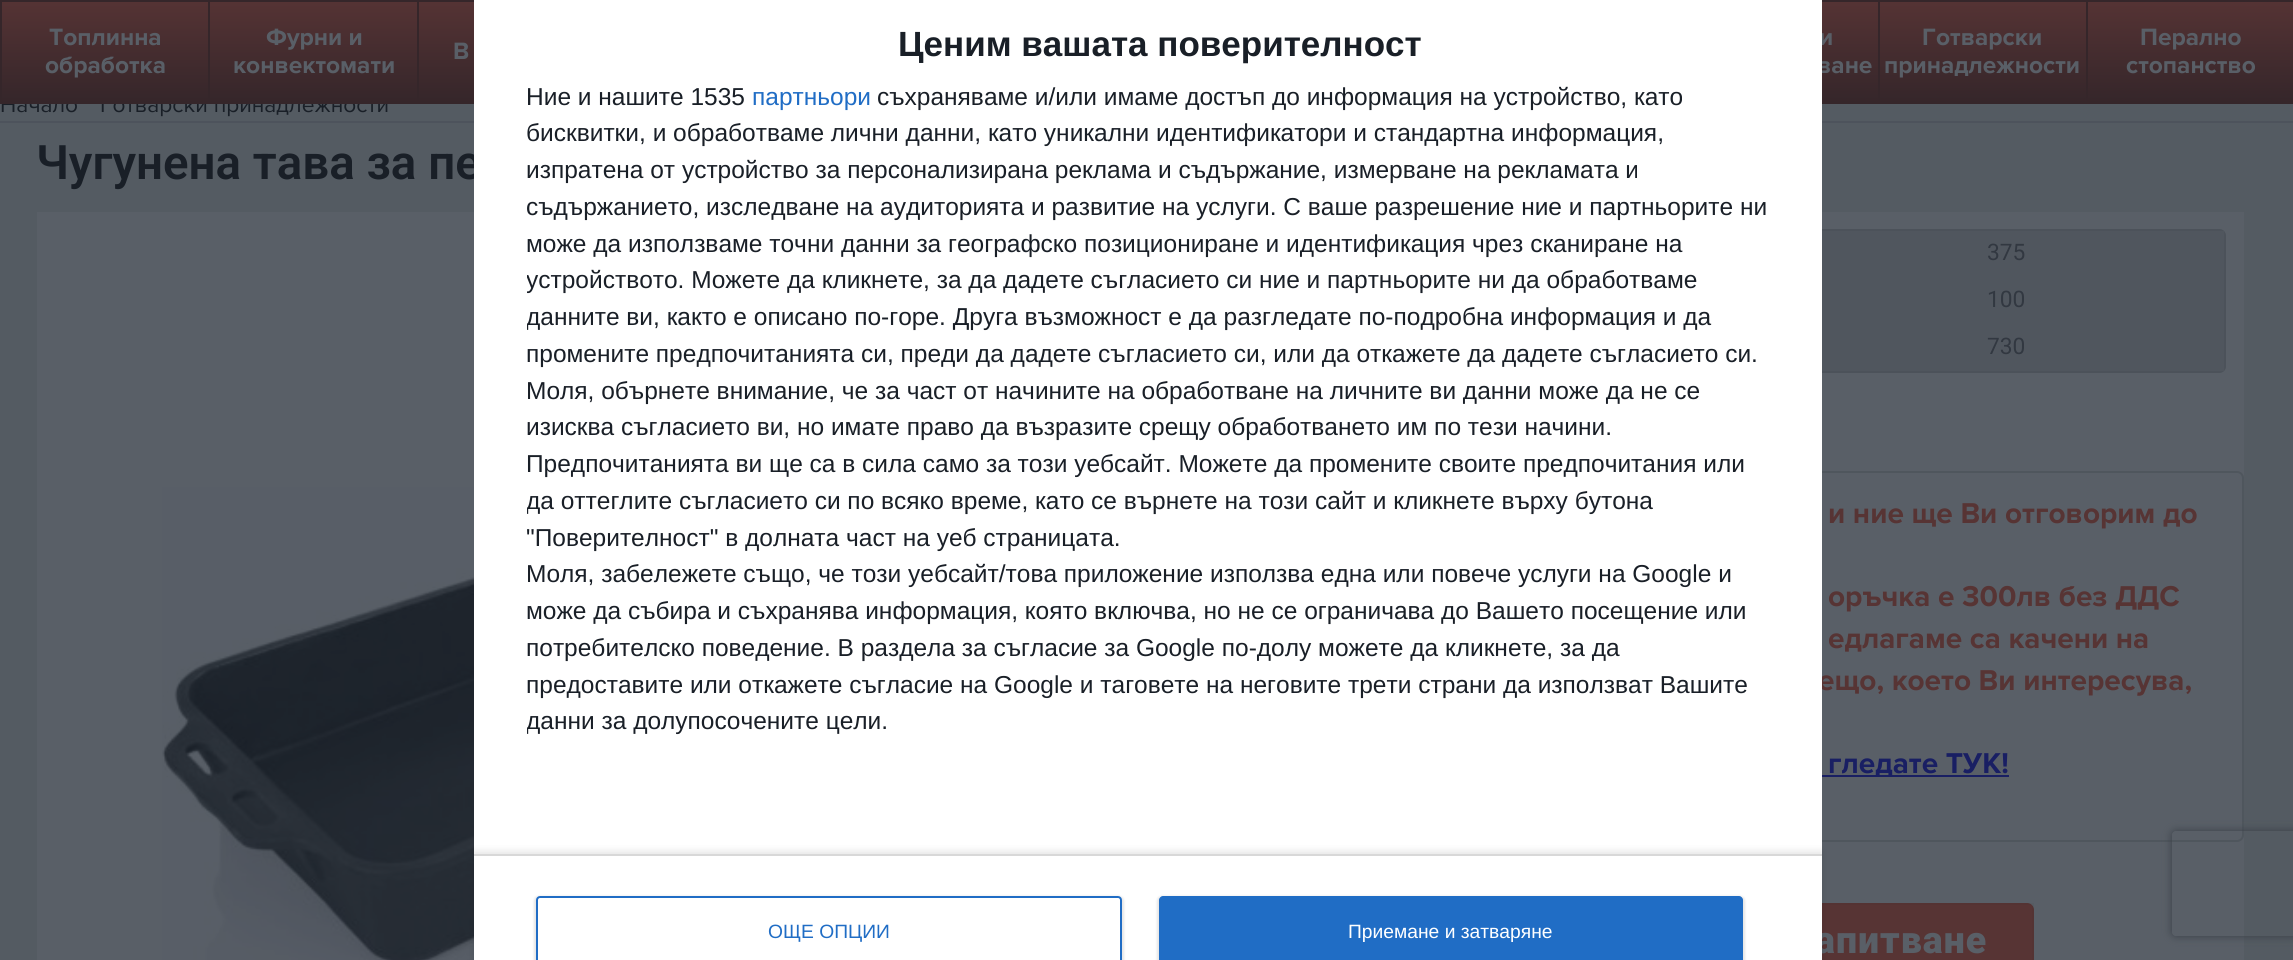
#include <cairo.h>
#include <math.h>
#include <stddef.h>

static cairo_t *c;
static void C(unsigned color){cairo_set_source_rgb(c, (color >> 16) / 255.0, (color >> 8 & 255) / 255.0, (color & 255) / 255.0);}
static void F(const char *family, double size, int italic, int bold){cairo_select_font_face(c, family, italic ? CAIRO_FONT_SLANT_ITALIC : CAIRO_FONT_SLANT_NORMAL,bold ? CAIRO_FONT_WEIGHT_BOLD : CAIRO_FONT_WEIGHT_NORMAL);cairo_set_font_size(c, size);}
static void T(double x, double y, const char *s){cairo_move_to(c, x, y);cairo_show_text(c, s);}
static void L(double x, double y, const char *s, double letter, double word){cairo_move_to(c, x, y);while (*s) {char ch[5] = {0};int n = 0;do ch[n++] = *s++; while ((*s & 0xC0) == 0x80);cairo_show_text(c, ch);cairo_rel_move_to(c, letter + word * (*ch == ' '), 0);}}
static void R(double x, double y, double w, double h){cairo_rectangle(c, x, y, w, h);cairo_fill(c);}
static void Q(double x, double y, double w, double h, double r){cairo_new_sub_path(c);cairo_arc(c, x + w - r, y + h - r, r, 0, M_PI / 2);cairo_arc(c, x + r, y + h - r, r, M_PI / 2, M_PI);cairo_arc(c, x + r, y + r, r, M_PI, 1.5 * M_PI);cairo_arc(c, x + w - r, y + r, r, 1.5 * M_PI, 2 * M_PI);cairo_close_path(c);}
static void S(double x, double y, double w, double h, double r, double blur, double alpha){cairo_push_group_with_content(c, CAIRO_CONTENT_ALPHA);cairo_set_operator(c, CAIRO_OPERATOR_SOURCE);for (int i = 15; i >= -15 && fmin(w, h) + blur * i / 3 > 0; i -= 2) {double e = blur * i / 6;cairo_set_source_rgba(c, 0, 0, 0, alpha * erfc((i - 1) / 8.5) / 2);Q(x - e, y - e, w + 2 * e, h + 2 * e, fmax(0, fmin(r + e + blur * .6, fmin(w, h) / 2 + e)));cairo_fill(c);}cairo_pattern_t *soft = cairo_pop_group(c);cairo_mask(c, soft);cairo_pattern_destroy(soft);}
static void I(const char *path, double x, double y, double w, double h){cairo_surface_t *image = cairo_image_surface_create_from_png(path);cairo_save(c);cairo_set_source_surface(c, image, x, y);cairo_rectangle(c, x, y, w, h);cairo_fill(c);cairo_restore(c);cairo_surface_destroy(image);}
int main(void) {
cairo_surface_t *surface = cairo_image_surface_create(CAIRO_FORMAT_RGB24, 2293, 960);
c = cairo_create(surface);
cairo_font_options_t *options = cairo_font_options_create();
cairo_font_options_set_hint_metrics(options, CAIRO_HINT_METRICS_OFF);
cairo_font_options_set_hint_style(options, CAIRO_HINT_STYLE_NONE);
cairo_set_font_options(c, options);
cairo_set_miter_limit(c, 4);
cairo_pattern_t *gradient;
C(0x545b62);
cairo_paint(c);
F("Proxima Nova",22.75,0,0);
C(0x191f27);
T(0,112,"Начало");
T(100,112,"Готварски принадлежности");
gradient = cairo_pattern_create_linear(105,1.7,105,102);
cairo_pattern_add_color_stop_rgba(gradient,0,0.333,0.2,0.204,1);
cairo_pattern_add_color_stop_rgba(gradient,1,0.208,0.149,0.165,1);
cairo_set_source(c,gradient);
cairo_pattern_destroy(gradient);
R(2,2,206,100);
C(0x35262a);
R(0,0,474,2);
R(0,102,474,2);
R(0,0,2,103);
F("Proxima Nova",24.5,0,1);
C(0x595f67);
T(49,45,"Топлинна");
T(45,73,"обработка");
gradient = cairo_pattern_create_linear(313,1.7,313,102);
cairo_pattern_add_color_stop_rgba(gradient,0,0.333,0.2,0.204,1);
cairo_pattern_add_color_stop_rgba(gradient,1,0.208,0.149,0.165,1);
cairo_set_source(c,gradient);
cairo_pattern_destroy(gradient);
R(210,2,207,100);
C(0x35262a);
R(208,0,2,103);
C(0x595f67);
T(266,45,"Фурни и");
T(233,73,"конвектомати");
gradient = cairo_pattern_create_linear(522,1.7,522,102);
cairo_pattern_add_color_stop_rgba(gradient,0,0.333,0.2,0.204,1);
cairo_pattern_add_color_stop_rgba(gradient,1,0.208,0.149,0.165,1);
cairo_set_source(c,gradient);
cairo_pattern_destroy(gradient);
R(419,2,55,100);
C(0x35262a);
R(417,0,2,103);
C(0x595f67);
T(453,59,"В");
gradient = cairo_pattern_create_linear(1774,1.7,1774,102);
cairo_pattern_add_color_stop_rgba(gradient,0,0.333,0.2,0.204,1);
cairo_pattern_add_color_stop_rgba(gradient,1,0.208,0.149,0.165,1);
cairo_set_source(c,gradient);
cairo_pattern_destroy(gradient);
R(1822,2,56,100);
C(0x35262a);
R(1822,0,471,2);
R(1822,102,471,2);
C(0x595f67);
T(1819,45,"и");
T(1817,73,"ване");
gradient = cairo_pattern_create_linear(1983,1.7,1983,102);
cairo_pattern_add_color_stop_rgba(gradient,0,0.333,0.2,0.204,1);
cairo_pattern_add_color_stop_rgba(gradient,1,0.208,0.149,0.165,1);
cairo_set_source(c,gradient);
cairo_pattern_destroy(gradient);
R(1880,2,206,100);
C(0x35262a);
R(1878,0,2,103);
C(0x595f67);
T(1922,45,"Готварски");
T(1884,73,"принадлежности");
gradient = cairo_pattern_create_linear(2191,1.7,2191,102);
cairo_pattern_add_color_stop_rgba(gradient,0,0.333,0.2,0.204,1);
cairo_pattern_add_color_stop_rgba(gradient,1,0.208,0.149,0.165,1);
cairo_set_source(c,gradient);
cairo_pattern_destroy(gradient);
R(2088,2,205,100);
C(0x35262a);
R(2086,0,2,103);
C(0x595f67);
T(2140,45,"Перално");
T(2126,73,"стопанство");
C(0x4d535c);
R(0,121,2293,2);
F("Roboto SemiBold",47.5,0,0);
C(0x191f27);
T(36,179,"Чугунена тава за пе");
C(0x595f67);
R(37,212,437,748);
I("1.png",162,487,312,473);
R(1822,212,422,748);
C(0x50565e);
Q(1370,229,856,144,7);
cairo_fill(c);
C(0x4c525a);
cairo_set_fill_rule(c,CAIRO_FILL_RULE_EVEN_ODD);
cairo_new_path(c);
cairo_move_to(c,1370,236);
cairo_line_to(c,1370,366);
cairo_curve_to(c,1370,368,1371,370,1372,371);
cairo_line_to(c,1372,231);
cairo_curve_to(c,1371,232,1370,234,1370,236);
cairo_close_path(c);
cairo_move_to(c,1377,229);
cairo_curve_to(c,1375,229,1373,230,1372,231);
cairo_line_to(c,2224,231);
cairo_curve_to(c,2223,230,2221,229,2219,229);
cairo_close_path(c);
cairo_move_to(c,2226,236);
cairo_curve_to(c,2226,234,2225,232,2224,231);
cairo_line_to(c,2224,371);
cairo_curve_to(c,2225,370,2226,368,2226,366);
cairo_close_path(c);
cairo_move_to(c,2219,373);
cairo_curve_to(c,2221,373,2223,372,2224,371);
cairo_line_to(c,1372,371);
cairo_line_to(c,1376,373);
cairo_close_path(c);
cairo_fill(c);
F("Roboto",22.75,0,0);
C(0x323841);
T(1987,260,"375");
T(1987,307,"100");
T(1987,354,"730");
Q(1371,472,872,369,6);
C(0x4f565d);
cairo_stroke(c);
F("Proxima Nova",29.75,0,1);
C(0x573434);
T(1828,523,"и ние ще Ви отговорим до");
T(1828,606,"оръчка е 300лв без ДДС");
T(1828,648,"едлагаме са качени на");
T(1818,690,"ещо, което Ви интересува,");
C(0x191f63);
R(1822,775,187,2);
T(1828,773,"гледате ТУК!");
C(0x573434);
Q(1580,903,454,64,7);
cairo_fill(c);
cairo_rectangle(c,1581,904,452,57);
cairo_set_source_rgba(c,0.098,0.122,0.153,0.05);
cairo_stroke(c);
F("Roboto Black",37.5,0,0);
C(0x595f67);
L(1815,953,"апитване",1,0);
C(0xffffff);
R(474,0,1348,960);
F("Liberation Sans",35,0,1);
C(0x191f27);
T(898,56,"Ценим вашата поверителност");
F("Liberation Sans",24.5,0,0);
T(526,105,"Ние и нашите 1535");
C(0x206dc5);
T(752,105,"партньори");
C(0x191f27);
T(877,105,"съхраняваме и/или имаме достъп до информация на устройство, като");
T(526,141,"бисквитки, и обработваме лични данни, като уникални идентификатори и стандартна информация,");
T(526,178,"изпратена от устройство за персонализирана реклама и съдържание, измерване на рекламата и");
T(526,215,"съдържанието, изследване на аудиторията и развитие на услуги. С ваше разрешение ние и партньорите ни");
T(526,252,"може да използваме точни данни за географско позициониране и идентификация чрез сканиране на");
cairo_save(c);
cairo_set_fill_rule(c,CAIRO_FILL_RULE_WINDING);
cairo_rectangle(c,527,79,1242,688);
cairo_clip(c);
T(526,288,"устройството. Можете да кликнете, за да дадете съгласието си ние и партньорите ни да обработваме");
T(526,325,"данните ви, както е описано по-горе. Друга възможност е да разгледате по-подробна информация и да");
cairo_restore(c);
T(526,362,"промените предпочитанията си, преди да дадете съгласието си, или да откажете да дадете съгласието си.");
T(526,399,"Моля, обърнете внимание, че за част от начините на обработване на личните ви данни може да не се");
T(526,435,"изисква съгласието ви, но имате право да възразите срещу обработването им по тези начини.");
T(526,472,"Предпочитанията ви ще са в сила само за този уебсайт. Можете да промените своите предпочитания или");
cairo_save(c);
cairo_set_fill_rule(c,CAIRO_FILL_RULE_WINDING);
cairo_rectangle(c,527,79,1242,688);
cairo_clip(c);
T(526,509,"да оттеглите съгласието си по всяко време, като се върнете на този сайт и кликнете върху бутона");
cairo_restore(c);
T(526,546,"\"Поверителност\" в долната част на уеб страницата.");
T(526,582,"Моля, забележете също, че този уебсайт/това приложение използва една или повече услуги на Google и");
T(526,619,"може да събира и съхранява информация, която включва, но не се ограничава до Вашето посещение или");
T(526,656,"потребителско поведение. В раздела за съгласие за Google по-долу можете да кликнете, за да");
T(526,693,"предоставите или откажете съгласие на Google и таговете на неговите трети страни да използват Вашите");
cairo_save(c);
cairo_set_fill_rule(c,CAIRO_FILL_RULE_WINDING);
cairo_rectangle(c,527,557,1242,183);
cairo_clip(c);
T(526,729,"данни за долупосочените цели.");
cairo_restore(c);
cairo_save(c);
cairo_new_path(c);
cairo_move_to(c,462,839);
cairo_line_to(c,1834,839);
cairo_line_to(c,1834,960);
cairo_line_to(c,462,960);
cairo_close_path(c);
cairo_move_to(c,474,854);
cairo_line_to(c,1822,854);
cairo_line_to(c,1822,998);
cairo_line_to(c,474,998);
cairo_close_path(c);
cairo_clip(c);
C(0x000000);
S(474,851,1348,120,0,3.5,.1);
cairo_restore(c);
C(0xd8d8d8);
R(474,854,1348,2);
C(0x000000);
S(534,896,590,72,5,1,.1);
C(0xffffff);
cairo_new_path(c);
cairo_move_to(c,540,896);
cairo_line_to(c,1118,896);
cairo_curve_to(c,1120,896,1122,898,1122,900);
cairo_line_to(c,1122,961);
cairo_line_to(c,536,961);
cairo_line_to(c,536,900);
cairo_curve_to(c,536,898,538,896,540,896);
cairo_close_path(c);
cairo_fill(c);
Q(537,897,584,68,3);
C(0x206dc5);
cairo_stroke(c);
F("Liberation Sans",19.25,0,0);
T(768,938,"ОЩЕ ОПЦИИ");
C(0x000000);
S(1157,896,588,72,5,1,.1);
C(0x206dc5);
cairo_new_path(c);
cairo_move_to(c,1163,896);
cairo_line_to(c,1739,896);
cairo_curve_to(c,1741,896,1743,898,1743,900);
cairo_line_to(c,1743,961);
cairo_line_to(c,1159,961);
cairo_line_to(c,1159,900);
cairo_curve_to(c,1159,898,1161,896,1163,896);
cairo_close_path(c);
cairo_fill(c);
C(0xffffff);
T(1348,938,"Приемане и затваряне");
cairo_save(c);
cairo_new_path(c);
cairo_move_to(c,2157,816);
cairo_line_to(c,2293,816);
cairo_line_to(c,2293,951);
cairo_line_to(c,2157,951);
cairo_close_path(c);
cairo_move_to(c,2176,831);
cairo_line_to(c,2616,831);
cairo_curve_to(c,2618,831,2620,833,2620,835);
cairo_line_to(c,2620,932);
cairo_curve_to(c,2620,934,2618,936,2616,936);
cairo_line_to(c,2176,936);
cairo_curve_to(c,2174,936,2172,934,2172,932);
cairo_line_to(c,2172,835);
cairo_curve_to(c,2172,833,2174,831,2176,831);
cairo_close_path(c);
cairo_clip(c);
C(0x393f47);
S(2172,831,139,105,4,4.5,1);
cairo_restore(c);
cairo_surface_write_to_png(surface, "o.png");
cairo_font_options_destroy(options);
cairo_destroy(c);
cairo_surface_destroy(surface);
return 0;
}
